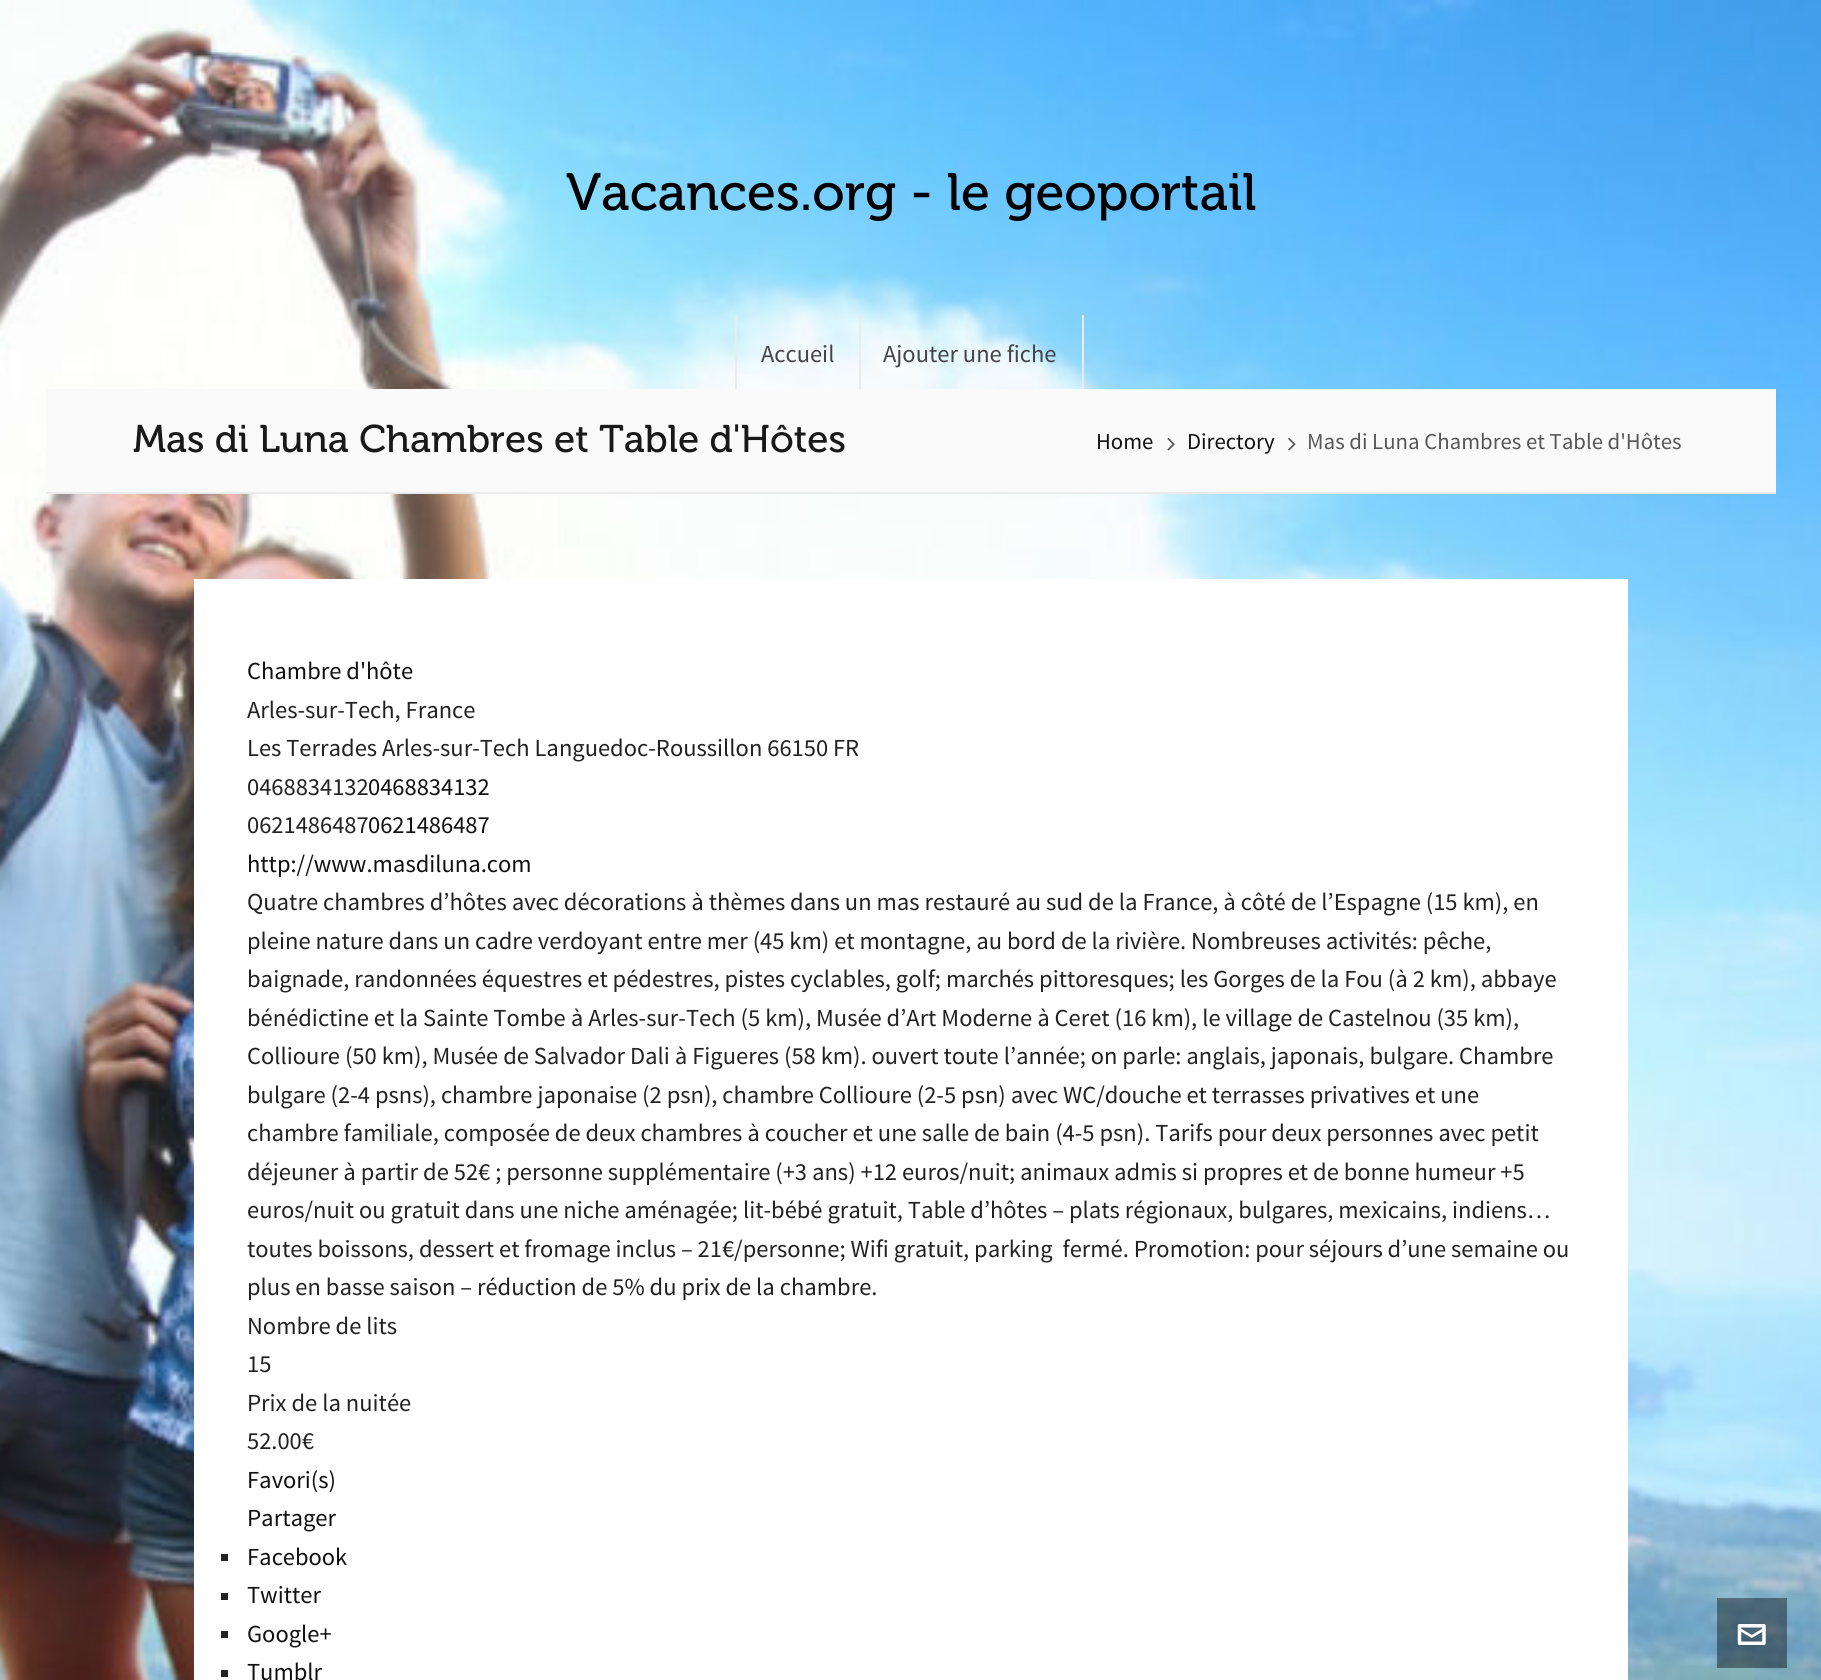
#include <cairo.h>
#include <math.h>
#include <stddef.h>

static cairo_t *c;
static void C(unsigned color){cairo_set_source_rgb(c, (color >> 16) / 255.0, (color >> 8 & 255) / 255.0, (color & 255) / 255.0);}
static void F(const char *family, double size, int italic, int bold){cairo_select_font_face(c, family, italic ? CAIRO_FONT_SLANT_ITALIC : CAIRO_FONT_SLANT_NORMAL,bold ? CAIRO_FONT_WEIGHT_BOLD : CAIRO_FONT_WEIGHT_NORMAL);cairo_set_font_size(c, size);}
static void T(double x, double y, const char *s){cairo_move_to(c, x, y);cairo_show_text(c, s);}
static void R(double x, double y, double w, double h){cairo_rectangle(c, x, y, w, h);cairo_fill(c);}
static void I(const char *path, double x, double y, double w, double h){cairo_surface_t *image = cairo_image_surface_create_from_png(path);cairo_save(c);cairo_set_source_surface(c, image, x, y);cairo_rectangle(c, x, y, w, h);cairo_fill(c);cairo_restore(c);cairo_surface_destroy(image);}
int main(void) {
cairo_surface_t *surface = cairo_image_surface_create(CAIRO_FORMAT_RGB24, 1821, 1680);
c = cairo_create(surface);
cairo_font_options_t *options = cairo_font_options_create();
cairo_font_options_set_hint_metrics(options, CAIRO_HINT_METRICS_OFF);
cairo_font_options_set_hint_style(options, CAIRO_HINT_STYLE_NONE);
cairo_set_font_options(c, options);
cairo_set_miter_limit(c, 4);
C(0xffffff);
cairo_paint(c);
I("1.png",0,0,1821,1680);
F("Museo",52.5,0,0);
C(0x000000);
T(566,210,"Vacances.org - le geoportail");
C(0xebebeb);
R(859,315,2,74);
R(735,315,2,74);
F("Source Sans Pro",24.5,0,0);
C(0x444444);
T(761,362,"Accueil");
C(0xebebeb);
R(1082,315,2,74);
C(0x444444);
T(883,362,"Ajouter une fiche");
C(0xebebeb);
R(46,492,1730,2);
C(0xfafafa);
R(46,389,1730,103);
F("Museo",38.5,0,0);
C(0x191919);
T(133,452,"Mas di Luna Chambres et Table d'Hôtes");
F("Source Sans Pro",22.75,0,0);
C(0x111111);
T(1096,449,"Home");
I("2.png",1167,437,8,14);
T(1187,449,"Directory");
I("3.png",1288,437,8,14);
C(0x575757);
T(1307,449,"Mas di Luna Chambres et Table d'Hôtes");
C(0xffffff);
R(194,579,1434,1101);
F("Source Sans Pro",24.5,0,0);
C(0x111111);
T(247,679,"Chambre d'hôte");
C(0x222222);
T(247,718,"Arles-sur-Tech, France");
T(247,756,"Les Terrades Arles-sur-Tech Languedoc-Roussillon 66150 FR");
T(247,795,"0468834132");
C(0x111111);
T(368,795,"0468834132");
C(0x222222);
T(247,833,"0621486487");
C(0x111111);
T(368,833,"0621486487");
T(247,872,"http://www.masdiluna.com");
C(0x222222);
T(247,910,"Quatre chambres d’hôtes avec décorations à thèmes dans un mas restauré au sud de la France, à côté de l’Espagne (15 km), en");
T(247,949,"pleine nature dans un cadre verdoyant entre mer (45 km) et montagne, au bord de la rivière. Nombreuses activités: pêche,");
T(247,987,"baignade, randonnées équestres et pédestres, pistes cyclables, golf; marchés pittoresques; les Gorges de la Fou (à 2 km), abbaye");
T(247,1026,"bénédictine et la Sainte Tombe à Arles-sur-Tech (5 km), Musée d’Art Moderne à Ceret (16 km), le village de Castelnou (35 km),");
T(247,1064,"Collioure (50 km), Musée de Salvador Dali à Figueres (58 km). ouvert toute l’année; on parle: anglais, japonais, bulgare. Chambre");
T(247,1103,"bulgare (2-4 psns), chambre japonaise (2 psn), chambre Collioure (2-5 psn) avec WC/douche et terrasses privatives et une");
T(247,1141,"chambre familiale, composée de deux chambres à coucher et une salle de bain (4-5 psn). Tarifs pour deux personnes avec petit");
T(247,1180,"déjeuner à partir de 52€ ; personne supplémentaire (+3 ans) +12 euros/nuit; animaux admis si propres et de bonne humeur +5");
T(247,1218,"euros/nuit ou gratuit dans une niche aménagée; lit-bébé gratuit, Table d’hôtes – plats régionaux, bulgares, mexicains, indiens…");
T(247,1257,"toutes boissons, dessert et fromage inclus – 21€/personne; Wifi gratuit, parking  fermé. Promotion: pour séjours d’une semaine ou");
T(247,1295,"plus en basse saison – réduction de 5% du prix de la chambre.");
T(247,1334,"Nombre de lits");
T(247,1372,"15");
T(247,1411,"Prix de la nuitée");
T(247,1449,"52.00€");
C(0x111111);
T(247,1488,"Favori(s)");
T(247,1526,"Partager");
C(0x222222);
R(221,1554,7,7);
C(0x111111);
T(247,1565,"Facebook");
C(0x222222);
R(221,1593,7,7);
C(0x111111);
T(247,1603,"Twitter");
C(0x222222);
R(221,1631,7,7);
C(0x111111);
T(247,1642,"Google+");
C(0x222222);
R(221,1670,7,7);
C(0x111111);
T(247,1680,"Tumblr");
cairo_set_source_rgba(c,0,0,0,0.4);
R(1717,1598,70,70);
I("4.png",1737,1624,29,21);
cairo_surface_write_to_png(surface, "o.png");
cairo_font_options_destroy(options);
cairo_destroy(c);
cairo_surface_destroy(surface);
return 0;
}
